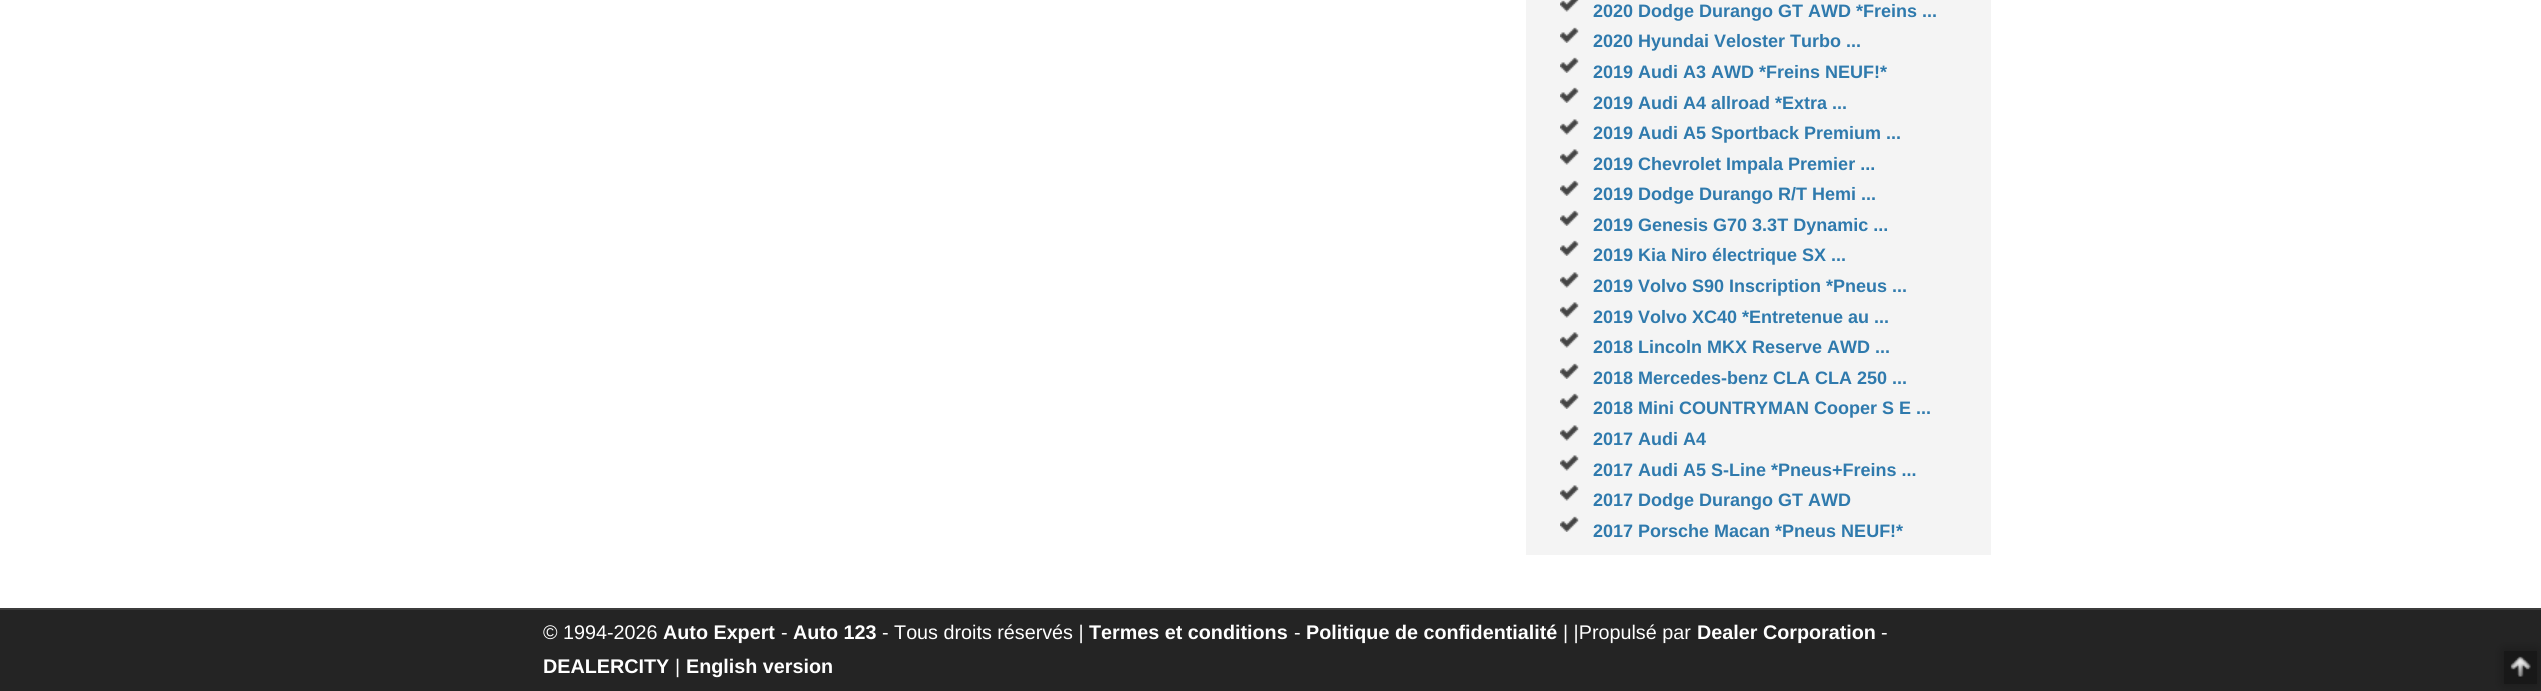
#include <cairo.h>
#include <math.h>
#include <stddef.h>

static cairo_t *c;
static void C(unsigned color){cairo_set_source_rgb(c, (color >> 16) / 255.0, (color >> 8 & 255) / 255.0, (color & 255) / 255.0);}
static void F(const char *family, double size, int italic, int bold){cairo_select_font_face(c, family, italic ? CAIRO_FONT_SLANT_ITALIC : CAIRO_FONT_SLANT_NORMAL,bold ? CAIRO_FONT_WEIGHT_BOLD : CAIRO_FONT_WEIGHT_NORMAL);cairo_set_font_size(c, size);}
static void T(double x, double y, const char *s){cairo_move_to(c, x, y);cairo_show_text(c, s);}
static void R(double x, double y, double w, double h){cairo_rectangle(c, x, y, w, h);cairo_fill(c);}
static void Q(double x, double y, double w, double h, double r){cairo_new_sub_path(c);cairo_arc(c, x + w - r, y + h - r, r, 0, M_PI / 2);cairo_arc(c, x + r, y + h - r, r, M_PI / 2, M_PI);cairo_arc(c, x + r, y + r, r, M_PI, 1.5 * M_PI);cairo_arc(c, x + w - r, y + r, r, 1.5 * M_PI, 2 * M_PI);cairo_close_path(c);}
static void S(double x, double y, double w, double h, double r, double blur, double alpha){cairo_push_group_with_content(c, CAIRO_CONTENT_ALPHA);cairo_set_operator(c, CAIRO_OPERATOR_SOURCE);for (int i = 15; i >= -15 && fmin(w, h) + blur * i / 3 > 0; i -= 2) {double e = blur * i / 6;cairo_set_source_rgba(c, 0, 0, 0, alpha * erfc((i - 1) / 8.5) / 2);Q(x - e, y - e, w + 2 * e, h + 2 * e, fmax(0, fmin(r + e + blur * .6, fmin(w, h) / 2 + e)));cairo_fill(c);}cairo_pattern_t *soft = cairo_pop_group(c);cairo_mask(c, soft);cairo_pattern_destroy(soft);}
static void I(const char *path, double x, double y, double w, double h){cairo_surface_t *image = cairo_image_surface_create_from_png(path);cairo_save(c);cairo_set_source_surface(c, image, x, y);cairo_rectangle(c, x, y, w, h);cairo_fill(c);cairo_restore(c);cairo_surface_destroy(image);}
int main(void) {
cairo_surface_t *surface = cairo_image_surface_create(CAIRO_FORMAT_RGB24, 2541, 691);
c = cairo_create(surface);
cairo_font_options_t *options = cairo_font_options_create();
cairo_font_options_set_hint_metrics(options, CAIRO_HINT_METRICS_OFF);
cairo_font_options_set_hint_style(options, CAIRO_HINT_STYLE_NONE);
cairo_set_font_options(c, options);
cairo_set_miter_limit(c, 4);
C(0xffffff);
cairo_paint(c);
C(0xf4f4f4);
R(1526,0,465,555);
I("1.png",1560,0,19,12);
F("Liberation Sans",18,0,1);
C(0x2f7aad);
T(1593,17,"2020 Dodge Durango GT AWD *Freins ...");
I("2.png",1560,27,19,16);
T(1593,47,"2020 Hyundai Veloster Turbo ...");
I("2.png",1560,57,19,16);
T(1593,78,"2019 Audi A3 AWD *Freins NEUF!*");
I("2.png",1560,87,19,16);
T(1593,109,"2019 Audi A4 allroad *Extra ...");
I("3.png",1560,119,19,16);
T(1593,139,"2019 Audi A5 Sportback Premium ...");
I("3.png",1560,149,19,16);
T(1593,170,"2019 Chevrolet Impala Premier ...");
I("2.png",1560,180,19,16);
T(1593,200,"2019 Dodge Durango R/T Hemi ...");
I("2.png",1560,210,19,16);
T(1593,231,"2019 Genesis G70 3.3T Dynamic ...");
I("2.png",1560,240,19,16);
T(1593,261,"2019 Kia Niro électrique SX ...");
I("3.png",1560,272,19,16);
T(1593,292,"2019 Volvo S90 Inscription *Pneus ...");
I("3.png",1560,302,19,16);
T(1593,323,"2019 Volvo XC40 *Entretenue au ...");
I("3.png",1560,332,19,16);
T(1593,353,"2018 Lincoln MKX Reserve AWD ...");
I("2.png",1560,363,19,16);
T(1593,384,"2018 Mercedes-benz CLA CLA 250 ...");
I("2.png",1560,393,19,16);
T(1593,414,"2018 Mini COUNTRYMAN Cooper S E ...");
I("3.png",1560,425,19,16);
T(1593,445,"2017 Audi A4");
I("3.png",1560,455,19,16);
T(1593,476,"2017 Audi A5 S-Line *Pneus+Freins ...");
I("3.png",1560,485,19,16);
T(1593,506,"2017 Dodge Durango GT AWD");
I("2.png",1560,516,19,16);
T(1593,537,"2017 Porsche Macan *Pneus NEUF!*");
C(0x242424);
R(0,610,2541,81);
C(0x3c3c3c);
R(0,608,2541,2);
F("Liberation Sans",19.75,0,0);
C(0xffffff);
T(543,639,"© 1994-2026");
F("Liberation Sans",19.75,0,1);
T(663,639,"Auto Expert");
F("Liberation Sans",19.75,0,0);
T(781,639,"-");
F("Liberation Sans",19.75,0,1);
T(793,639,"Auto 123");
F("Liberation Sans",19.75,0,0);
T(882,639,"- Tous droits réservés |");
F("Liberation Sans",19.75,0,1);
T(1089,639,"Termes et conditions");
F("Liberation Sans",19.75,0,0);
T(1294,639,"-");
F("Liberation Sans",19.75,0,1);
T(1306,639,"Politique de confidentialité");
F("Liberation Sans",19.75,0,0);
T(1563,639,"| |Propulsé par");
F("Liberation Sans",19.75,0,1);
T(1697,639,"Dealer Corporation");
F("Liberation Sans",19.75,0,0);
T(1881,639,"-");
F("Liberation Sans",19.75,0,1);
T(543,673,"DEALERCITY");
F("Liberation Sans",19.75,0,0);
T(675,673,"|");
F("Liberation Sans",19.75,0,1);
T(686,673,"English version");
C(0x000000);
S(2504,651,33,33,0,6,.3);
C(0x181818);
R(2504,651,33,33);
I("4.png",2510,656,21,21);
cairo_surface_write_to_png(surface, "o.png");
cairo_font_options_destroy(options);
cairo_destroy(c);
cairo_surface_destroy(surface);
return 0;
}
